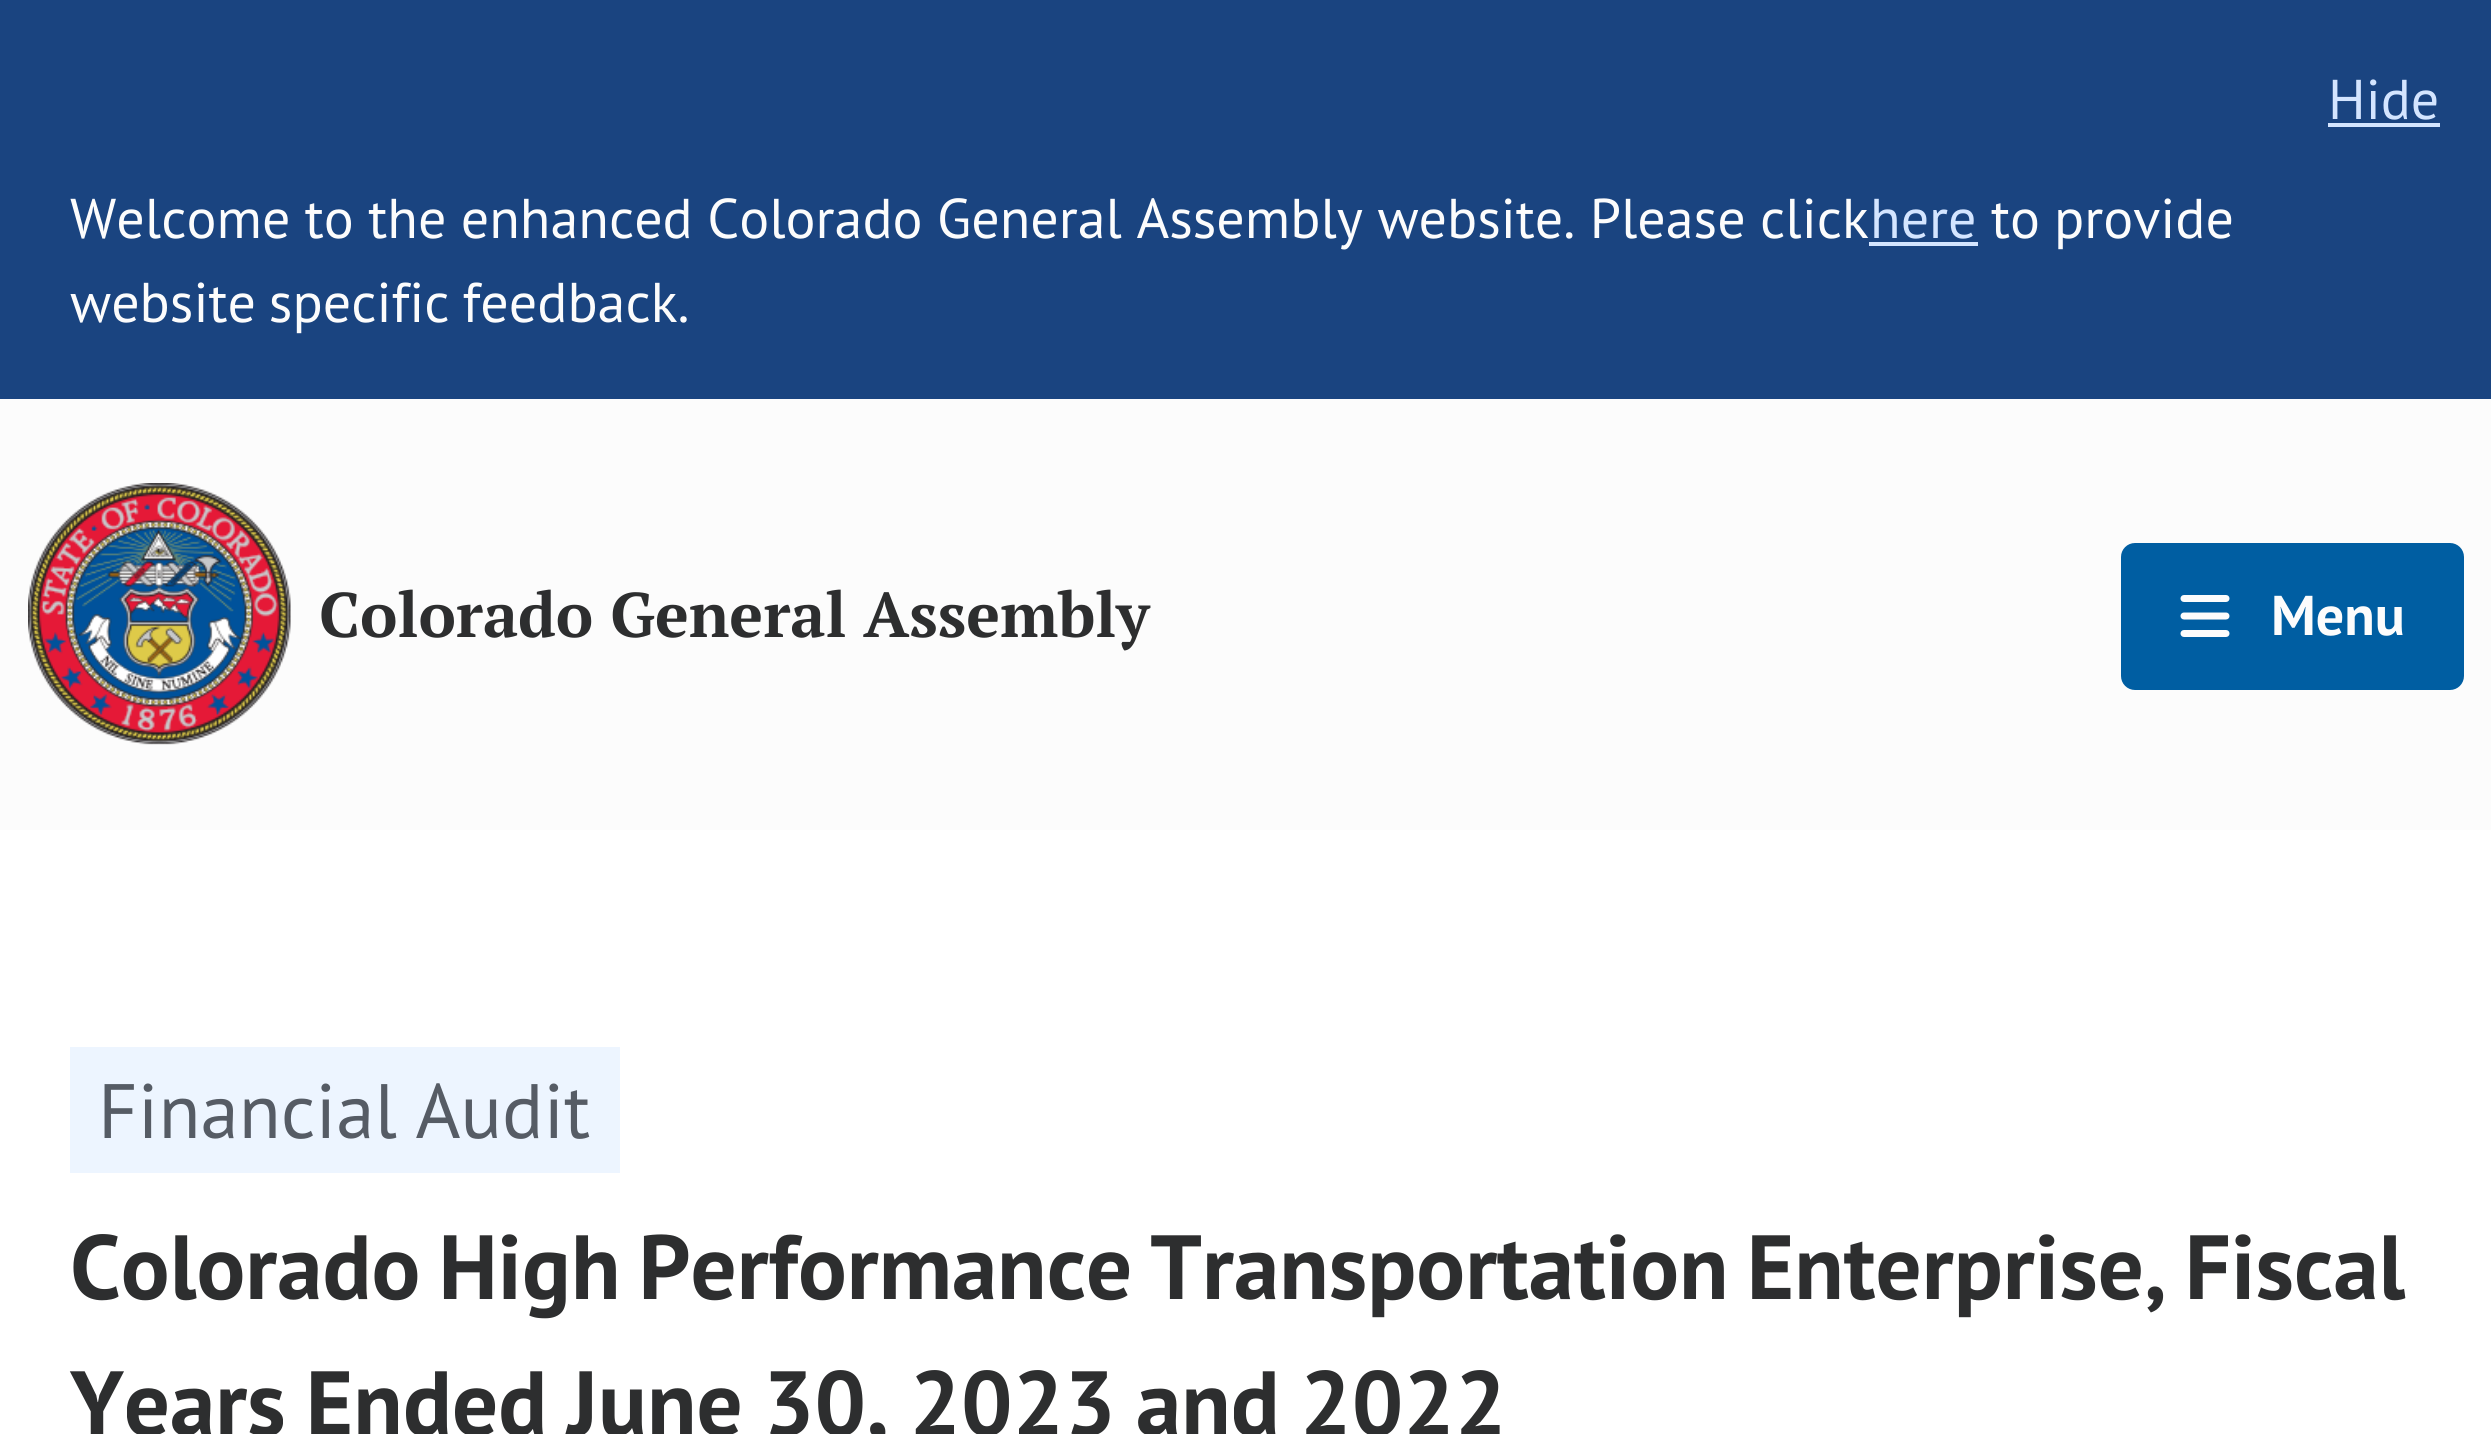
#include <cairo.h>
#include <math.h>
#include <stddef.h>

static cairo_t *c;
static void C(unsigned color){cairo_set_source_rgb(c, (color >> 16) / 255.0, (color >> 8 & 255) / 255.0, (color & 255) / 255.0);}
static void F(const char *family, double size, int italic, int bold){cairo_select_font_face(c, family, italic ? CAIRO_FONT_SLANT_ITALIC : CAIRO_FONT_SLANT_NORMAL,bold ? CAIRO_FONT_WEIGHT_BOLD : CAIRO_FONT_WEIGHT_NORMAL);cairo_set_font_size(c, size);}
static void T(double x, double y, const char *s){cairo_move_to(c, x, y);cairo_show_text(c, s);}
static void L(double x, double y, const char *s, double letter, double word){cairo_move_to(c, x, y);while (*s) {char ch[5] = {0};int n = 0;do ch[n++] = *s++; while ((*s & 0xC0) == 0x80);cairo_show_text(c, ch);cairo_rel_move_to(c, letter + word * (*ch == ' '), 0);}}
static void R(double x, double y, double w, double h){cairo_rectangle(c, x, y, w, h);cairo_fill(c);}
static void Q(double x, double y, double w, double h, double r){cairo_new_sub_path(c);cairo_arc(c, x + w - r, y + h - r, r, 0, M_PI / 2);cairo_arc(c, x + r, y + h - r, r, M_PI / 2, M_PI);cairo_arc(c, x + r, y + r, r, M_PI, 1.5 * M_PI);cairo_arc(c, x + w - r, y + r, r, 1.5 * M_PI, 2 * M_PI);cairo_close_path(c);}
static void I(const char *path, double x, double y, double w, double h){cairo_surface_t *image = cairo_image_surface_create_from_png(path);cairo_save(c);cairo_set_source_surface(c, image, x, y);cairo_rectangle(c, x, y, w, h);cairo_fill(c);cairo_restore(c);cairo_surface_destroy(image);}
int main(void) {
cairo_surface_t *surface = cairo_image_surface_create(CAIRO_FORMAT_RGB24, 2491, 1434);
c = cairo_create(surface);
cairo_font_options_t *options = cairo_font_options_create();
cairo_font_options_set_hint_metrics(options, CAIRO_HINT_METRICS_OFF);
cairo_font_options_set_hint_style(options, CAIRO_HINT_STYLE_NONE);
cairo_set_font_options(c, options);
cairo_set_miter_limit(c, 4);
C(0xffffff);
cairo_paint(c);
C(0x1a4480);
R(0,0,2491,399);
F("PT Sans",56,0,0);
C(0xd4e5ff);
T(2328,119,"Hide");
R(2328,123,112,4);
C(0xfcfcfc);
L(70,238,"Welcome to the enhanced Colorado General Assembly website. Please click",0,-.5);
C(0xd4e5ff);
T(1870,238,"here");
R(1869,242,109,4);
C(0xfcfcfc);
L(1991,238,"to provide",0,-1);
L(70,322,"website specific feedback.",0,-2);
R(0,399,2491,431);
I("1.png",28,483,263,262);
F("PT Serif",63,0,1);
C(0x2d2e2f);
T(319,637,"Colorado General Assembly");
C(0x005ea2);
Q(2121,543,343,147,14);
cairo_fill(c);
I("2.png",2180,595,50,42);
F("PT Sans",56,0,1);
C(0xfcfcfc);
T(2271,635,"Menu");
C(0xedf5ff);
R(70,1047,550,126);
F("PT Sans",77,0,0);
C(0x565c65);
L(98,1138,"Financial Audit",0,-2);
F("PT Sans",91,0,1);
C(0x2d2e2f);
L(70,1299,"Colorado High Performance Transportation Enterprise, Fiscal",0,-5);
L(70,1435,"Years Ended June 30, 2023 and 2022",0,-2.75);
cairo_surface_write_to_png(surface, "o.png");
cairo_font_options_destroy(options);
cairo_destroy(c);
cairo_surface_destroy(surface);
return 0;
}
